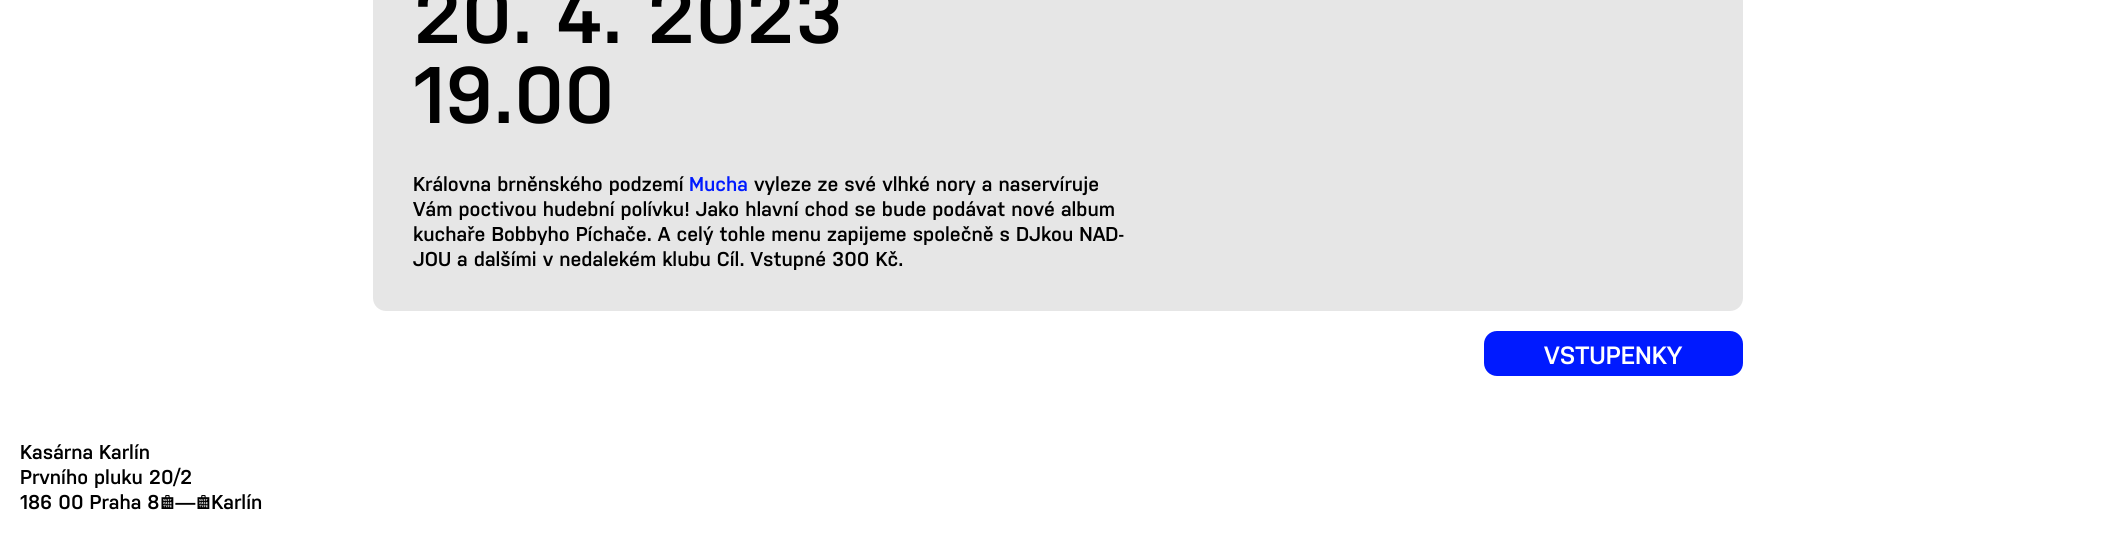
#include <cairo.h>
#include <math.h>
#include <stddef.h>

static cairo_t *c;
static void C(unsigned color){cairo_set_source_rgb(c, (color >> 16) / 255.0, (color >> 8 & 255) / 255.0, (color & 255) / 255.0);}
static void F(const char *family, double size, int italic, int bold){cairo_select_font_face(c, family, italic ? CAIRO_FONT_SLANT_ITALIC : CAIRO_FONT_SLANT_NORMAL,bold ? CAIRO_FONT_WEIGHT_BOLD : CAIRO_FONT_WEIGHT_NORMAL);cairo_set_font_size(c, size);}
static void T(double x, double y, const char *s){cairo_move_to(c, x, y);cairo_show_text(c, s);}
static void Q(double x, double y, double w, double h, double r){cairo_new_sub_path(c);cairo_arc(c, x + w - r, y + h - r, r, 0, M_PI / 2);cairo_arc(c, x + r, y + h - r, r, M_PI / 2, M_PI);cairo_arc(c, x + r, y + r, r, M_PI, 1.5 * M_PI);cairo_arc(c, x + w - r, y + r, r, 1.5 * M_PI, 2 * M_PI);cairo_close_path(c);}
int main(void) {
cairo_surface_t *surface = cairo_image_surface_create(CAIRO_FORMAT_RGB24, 2114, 553);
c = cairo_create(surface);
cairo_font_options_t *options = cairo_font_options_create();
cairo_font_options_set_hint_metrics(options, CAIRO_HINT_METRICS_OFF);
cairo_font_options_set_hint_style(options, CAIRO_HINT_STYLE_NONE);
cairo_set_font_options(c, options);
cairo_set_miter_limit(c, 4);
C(0xffffff);
cairo_paint(c);
C(0xe6e6e6);
Q(373,-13,1370,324,13);
cairo_fill(c);
F("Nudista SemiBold",80,0,0);
C(0x000000);
T(413,43,"20. 4. 2023");
T(413,123,"19.00");
F("Nudista SemiBold",20,0,0);
T(413,191,"Královna brněnského podzemí");
C(0x001aff);
T(689,191,"Mucha");
C(0x000000);
T(754,191,"vyleze ze své vlhké nory a naservíruje");
T(413,216,"Vám poctivou hudební polívku! Jako hlavní chod se bude podávat nové album");
T(413,241,"kuchaře Bobbyho Píchače. A celý tohle menu zapijeme společně s DJkou NAD-");
T(413,266,"JOU a dalšími v nedalekém klubu Cíl. Vstupné 300 Kč.");
C(0x001aff);
Q(1484,331,259,45,13);
cairo_fill(c);
F("Nudista SemiBold",25,0,0);
C(0xffffff);
T(1544,364,"VSTUPENKY");
F("Nudista SemiBold",20,0,0);
C(0x000000);
T(20,459,"Kasárna Karlín");
T(20,484,"Prvního pluku 20/2");
T(20,509,"186 00 Praha 8 — Karlín");
cairo_surface_write_to_png(surface, "o.png");
cairo_font_options_destroy(options);
cairo_destroy(c);
cairo_surface_destroy(surface);
return 0;
}
